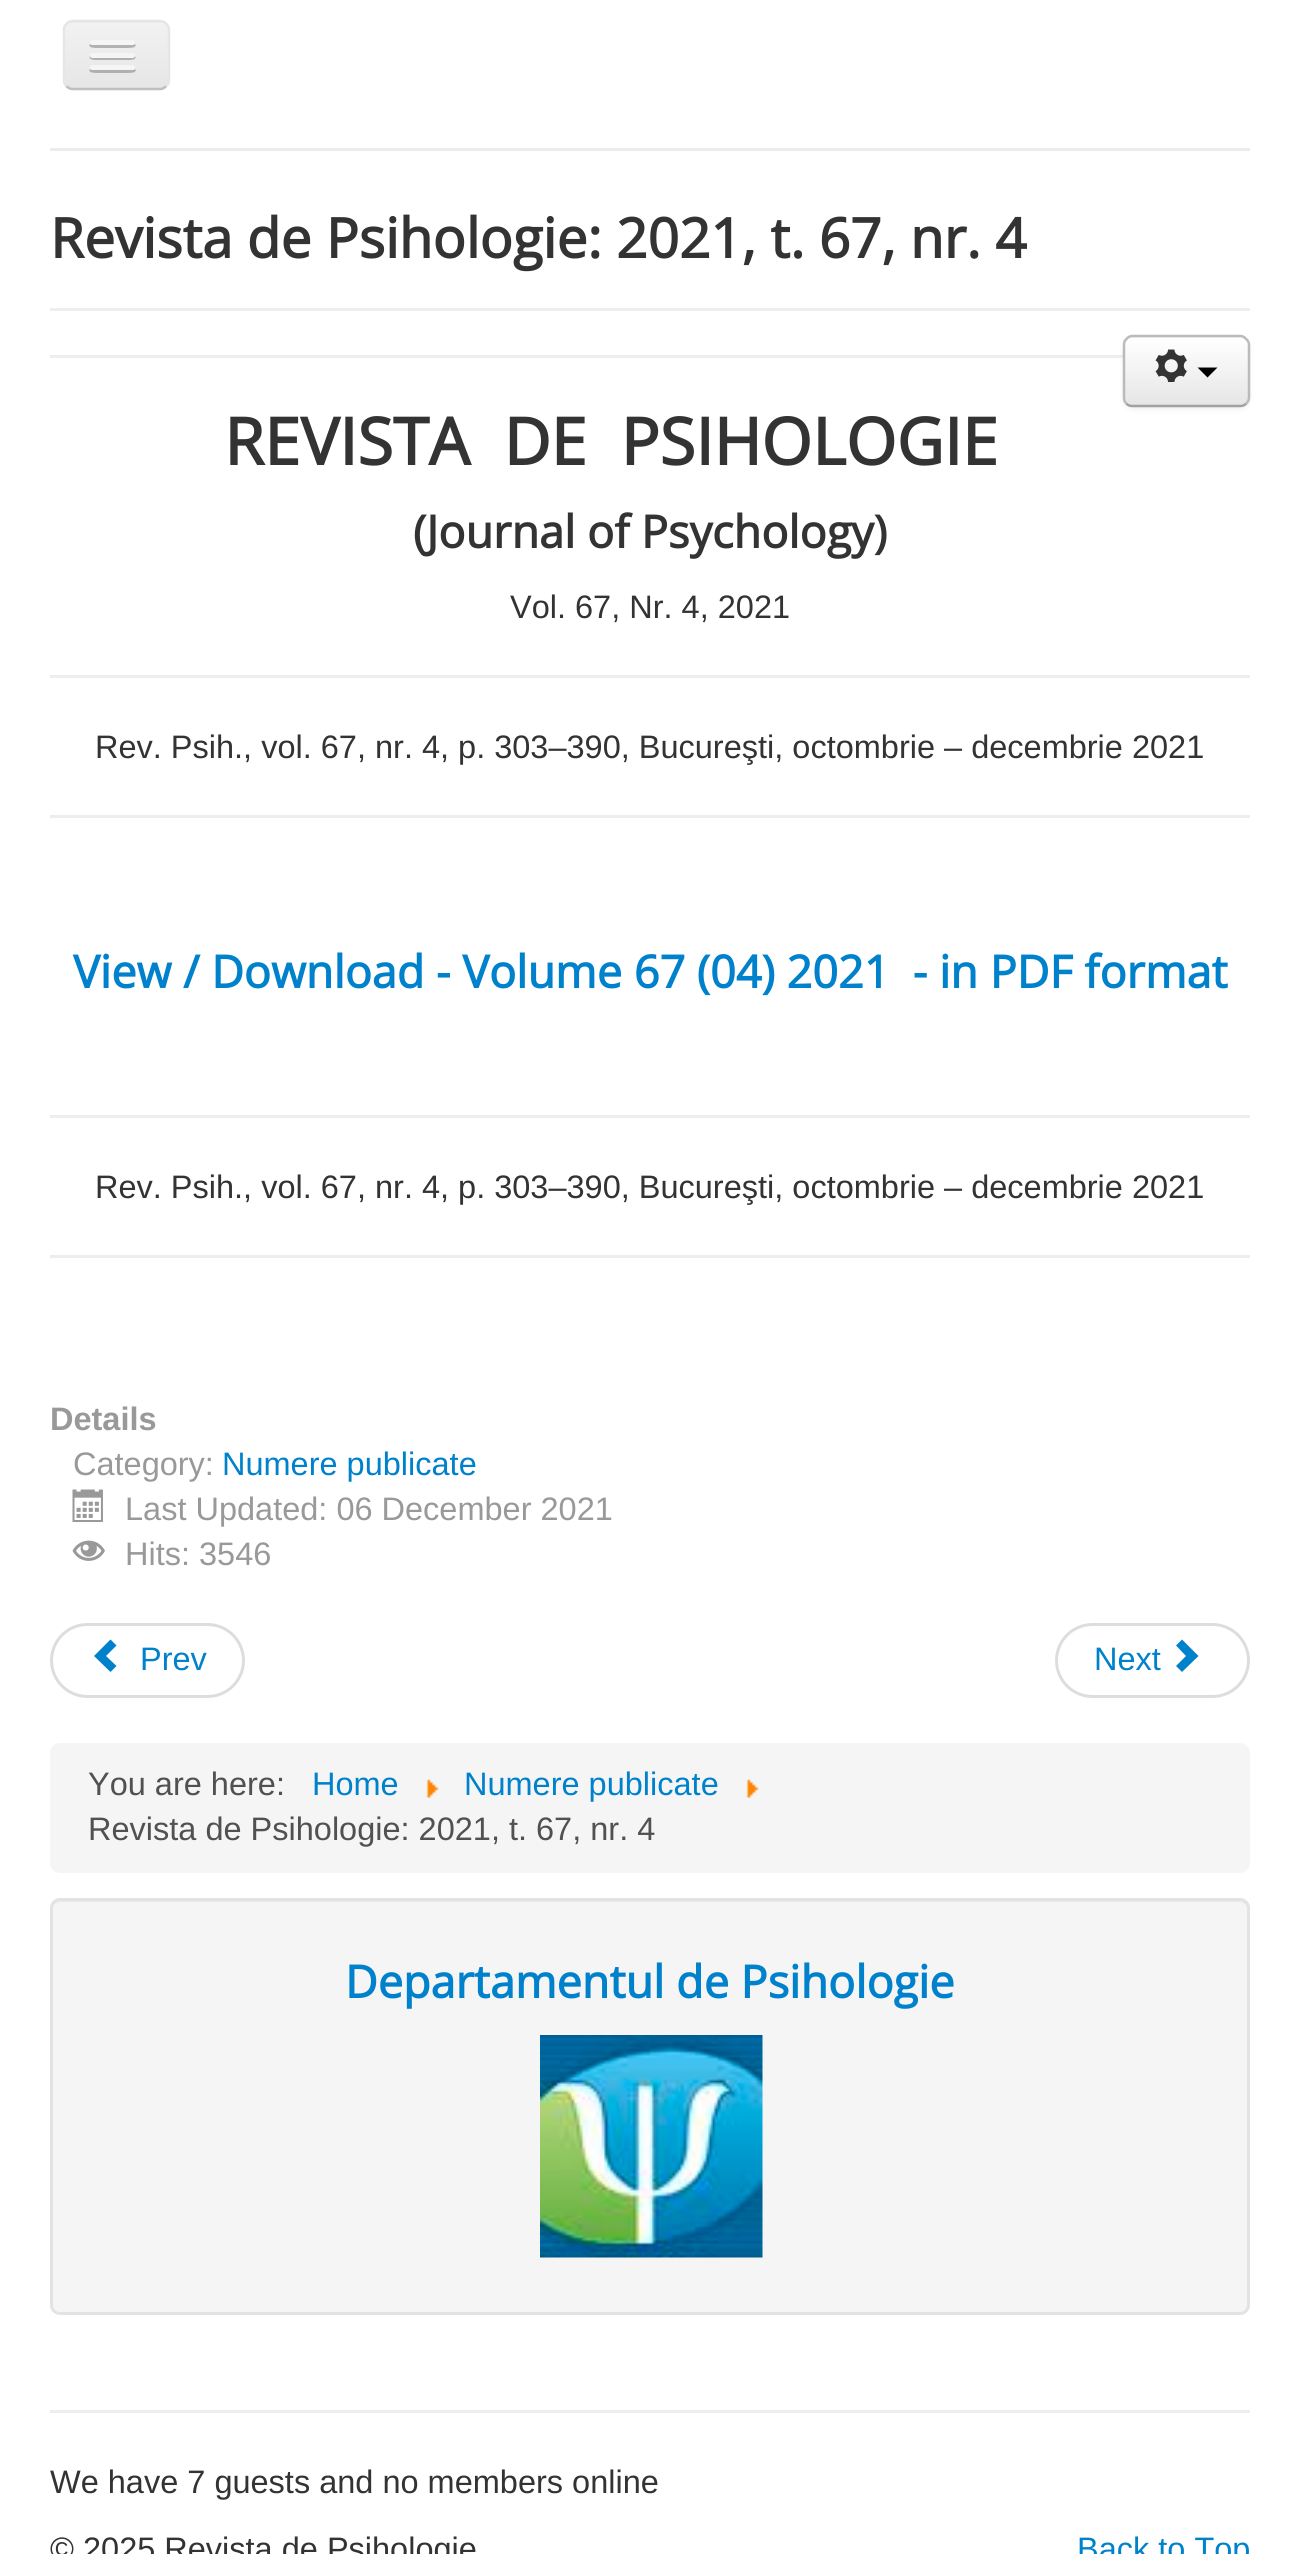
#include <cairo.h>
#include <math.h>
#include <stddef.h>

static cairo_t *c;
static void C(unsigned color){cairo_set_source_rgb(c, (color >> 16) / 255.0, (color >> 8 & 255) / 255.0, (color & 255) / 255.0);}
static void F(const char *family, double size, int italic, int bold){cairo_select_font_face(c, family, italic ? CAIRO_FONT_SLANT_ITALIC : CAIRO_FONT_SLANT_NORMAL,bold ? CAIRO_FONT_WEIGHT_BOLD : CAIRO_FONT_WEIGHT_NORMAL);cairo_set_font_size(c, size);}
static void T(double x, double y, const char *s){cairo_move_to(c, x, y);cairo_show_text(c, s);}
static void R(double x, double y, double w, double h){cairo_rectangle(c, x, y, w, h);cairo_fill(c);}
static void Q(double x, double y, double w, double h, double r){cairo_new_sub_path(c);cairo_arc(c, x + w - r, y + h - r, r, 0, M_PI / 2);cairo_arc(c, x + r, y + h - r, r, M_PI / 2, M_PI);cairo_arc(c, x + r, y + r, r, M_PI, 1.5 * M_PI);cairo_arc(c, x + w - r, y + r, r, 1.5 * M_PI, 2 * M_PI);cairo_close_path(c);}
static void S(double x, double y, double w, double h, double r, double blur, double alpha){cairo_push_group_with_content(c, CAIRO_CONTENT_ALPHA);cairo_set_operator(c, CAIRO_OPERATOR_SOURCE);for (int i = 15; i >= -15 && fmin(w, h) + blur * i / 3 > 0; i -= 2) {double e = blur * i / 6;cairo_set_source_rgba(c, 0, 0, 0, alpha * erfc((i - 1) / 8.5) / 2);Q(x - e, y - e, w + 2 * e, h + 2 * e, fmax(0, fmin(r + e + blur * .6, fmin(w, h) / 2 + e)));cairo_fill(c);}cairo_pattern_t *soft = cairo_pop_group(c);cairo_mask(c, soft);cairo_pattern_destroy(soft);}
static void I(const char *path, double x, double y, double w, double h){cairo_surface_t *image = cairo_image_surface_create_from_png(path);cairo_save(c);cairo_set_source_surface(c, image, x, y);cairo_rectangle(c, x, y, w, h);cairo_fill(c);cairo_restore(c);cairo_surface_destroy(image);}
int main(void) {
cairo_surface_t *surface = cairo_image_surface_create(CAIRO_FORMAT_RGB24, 1299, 2554);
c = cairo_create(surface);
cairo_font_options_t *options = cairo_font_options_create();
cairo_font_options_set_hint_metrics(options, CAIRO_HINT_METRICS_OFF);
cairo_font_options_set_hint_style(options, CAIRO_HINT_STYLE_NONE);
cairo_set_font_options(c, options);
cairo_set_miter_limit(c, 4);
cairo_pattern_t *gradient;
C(0xffffff);
cairo_paint(c);
C(0xececec);
R(50,148,1200,3);
C(0xededed);
Q(63,20,107,70,10);
cairo_fill(c);
cairo_save(c);
Q(63,20,107,70,10);
cairo_clip(c);
gradient = cairo_pattern_create_linear(116,22,116,88);
cairo_pattern_add_color_stop_rgba(gradient,0,0.949,0.949,0.949,1);
cairo_pattern_add_color_stop_rgba(gradient,1,0.902,0.902,0.902,1);
cairo_set_source(c,gradient);
cairo_pattern_destroy(gradient);
R(63,23,107,65);
cairo_restore(c);
cairo_new_path(c);
cairo_move_to(c,166,86);
cairo_curve_to(c,164.5,88,162.5,89,160,89);
cairo_line_to(c,72.5,89);
cairo_curve_to(c,70,89,68,88,66.5,86);
C(0xbfbfbf);
cairo_set_line_width(c,2.5);
cairo_stroke(c);
cairo_new_path(c);
cairo_move_to(c,66.5,86);
cairo_curve_to(c,64.5,84.5,64,82.5,64,80);
cairo_line_to(c,64,30);
cairo_curve_to(c,64,27.5,64.5,25.5,66.5,24);
cairo_curve_to(c,68,22,70,21,72.5,21);
cairo_line_to(c,160,21);
cairo_curve_to(c,162.5,21,164.5,22,166,24);
cairo_curve_to(c,168,25.5,169,27.5,169,30);
cairo_line_to(c,169,80);
cairo_curve_to(c,169,82.5,168,84.5,166,86);
C(0xe6e6e6);
cairo_stroke(c);
C(0xb2b2b2);
cairo_new_path(c);
cairo_move_to(c,90,44);
cairo_curve_to(c,87,48,95,48,99,48);
cairo_line_to(c,126,48);
cairo_curve_to(c,130,48,138,48,135,44);
cairo_line_to(c,133,45);
cairo_line_to(c,92,45);
cairo_close_path(c);
cairo_fill(c);
C(0xf5f5f5);
Q(90,40,45,5,2.5);
cairo_fill(c);
C(0xb0b0b0);
cairo_new_path(c);
cairo_move_to(c,90,56);
cairo_curve_to(c,87,61,99,60,99,60);
cairo_line_to(c,126,60);
cairo_curve_to(c,126,60,138,61,135,56);
cairo_curve_to(c,134,57,133,58,132,58);
cairo_line_to(c,92,58);
cairo_curve_to(c,92,58,91,57,90,56);
cairo_close_path(c);
cairo_fill(c);
C(0xf5f5f5);
Q(90,53,45,5,2.5);
cairo_fill(c);
C(0xafafaf);
cairo_new_path(c);
cairo_move_to(c,90,69);
cairo_curve_to(c,87,73,95,73,99,73);
cairo_line_to(c,126,73);
cairo_curve_to(c,130,73,138,73,135,69);
cairo_line_to(c,133,70);
cairo_line_to(c,92,70);
cairo_close_path(c);
cairo_fill(c);
C(0xf5f5f5);
Q(90,65,45,5,2.5);
cairo_fill(c);
C(0xeeeeee);
R(50,308,1200,3);
F("Open Sans",55,0,1);
C(0x333333);
T(50,258,"Revista de Psihologie: 2021, t. 67, nr. 4");
C(0xeeeeee);
R(50,355,1073,3);
C(0x000000);
S(1123,338,127,72,10,2.5,.05);
C(0xf5f5f5);
Q(1123,335,127,73,10);
cairo_fill(c);
cairo_save(c);
Q(1123,335,127,73,10);
cairo_clip(c);
gradient = cairo_pattern_create_linear(1186,338,1186,405);
cairo_pattern_add_color_stop_rgba(gradient,0,1,1,1,1);
cairo_pattern_add_color_stop_rgba(gradient,1,0.902,0.902,0.902,1);
cairo_set_source(c,gradient);
cairo_pattern_destroy(gradient);
R(1123,338,127,67);
cairo_restore(c);
cairo_new_path(c);
cairo_move_to(c,1246,403.5);
cairo_curve_to(c,1244.5,405.5,1242.5,406,1240,406);
cairo_line_to(c,1132.5,406);
cairo_curve_to(c,1130,406,1128,405.5,1126.5,403.5);
C(0xa2a2a2);
cairo_stroke(c);
cairo_new_path(c);
cairo_move_to(c,1126.5,403.5);
cairo_curve_to(c,1124.5,402,1124,400,1124,397.5);
cairo_line_to(c,1124,345);
cairo_curve_to(c,1124,342.5,1124.5,340.5,1126.5,339);
cairo_curve_to(c,1128,337,1130,336,1132.5,336);
cairo_line_to(c,1240,336);
cairo_curve_to(c,1242.5,336,1244.5,337,1246,339);
cairo_curve_to(c,1248,340.5,1249,342.5,1249,345);
cairo_line_to(c,1249,397.5);
cairo_curve_to(c,1249,400,1248,402,1246,403.5);
C(0xbbbbbb);
cairo_stroke(c);
I("1.png",1155,349,32,33);
C(0x000000);
cairo_new_path(c);
cairo_move_to(c,1197.5,367.5);
cairo_line_to(c,1217.5,367.5);
cairo_line_to(c,1207.5,377.5);
cairo_close_path(c);
cairo_fill(c);
F("Open Sans",65,0,1);
C(0x333333);
T(224,465,"REVISTA  DE  PSIHOLOGIE");
F("Open Sans",45,0,1);
T(413,548,"(Journal of Psychology)");
F("Liberation Sans",32.5,0,0);
T(510,618,"Vol. 67, Nr. 4, 2021");
C(0xeeeeee);
R(50,675,1200,3);
C(0x333333);
T(95,758,"Rev. Psih., vol. 67, nr. 4, p. 303–390, Bucureşti, octombrie – decembrie 2021");
C(0xeeeeee);
R(50,815,1200,3);
F("Open Sans",45,0,1);
C(0x0081cc);
T(73,988,"View / Download - Volume 67 (04) 2021  - in PDF format");
C(0xeeeeee);
R(50,1115,1200,3);
F("Liberation Sans",32.5,0,0);
C(0x333333);
T(95,1198,"Rev. Psih., vol. 67, nr. 4, p. 303–390, Bucureşti, octombrie – decembrie 2021");
C(0xeeeeee);
R(50,1255,1200,3);
F("Liberation Sans",32.5,0,1);
C(0x999999);
T(50,1430,"Details");
F("Liberation Sans",32.5,0,0);
T(73,1475,"Category:");
C(0x0081cc);
T(222,1475,"Numere publicate");
I("2.png",72,1489,31,33);
C(0x999999);
T(125,1520,"Last Updated: 06 December 2021");
I("3.png",72,1540,33,21);
T(125,1565,"Hits: 3546");
Q(51.5,1624.5,192,72,36);
C(0xdddddd);
cairo_set_line_width(c,3);
cairo_stroke(c);
C(0x0081cc);
cairo_new_path(c);
cairo_move_to(c,110.5,1672);
cairo_line_to(c,94,1656);
cairo_line_to(c,110.5,1639.5);
cairo_line_to(c,116.5,1645.5);
cairo_line_to(c,106,1656);
cairo_line_to(c,116.5,1666);
cairo_close_path(c);
cairo_fill(c);
T(140,1670,"Prev");
Q(1056.5,1624.5,192,72,36);
C(0xdddddd);
cairo_stroke(c);
C(0x0081cc);
T(1094,1670,"Next");
cairo_new_path(c);
cairo_move_to(c,1182,1639.5);
cairo_line_to(c,1198.5,1656);
cairo_line_to(c,1182,1672);
cairo_line_to(c,1176,1666);
cairo_line_to(c,1186,1656);
cairo_line_to(c,1176,1645.5);
cairo_close_path(c);
cairo_fill(c);
C(0xf5f5f5);
Q(50,1743,1200,130,10);
cairo_fill(c);
C(0x515151);
T(88,1795,"You are here:");
C(0x0081cc);
T(312,1795,"Home");
I("4.png",426,1779,13,19);
T(464,1795,"Numere publicate");
I("4.png",746,1779,13,19);
C(0x515151);
T(88,1840,"Revista de Psihologie: 2021, t. 67, nr. 4");
C(0xf5f5f5);
Q(50,1898,1200,417,10);
cairo_fill(c);
C(0xe9e9e9);
cairo_new_path(c);
cairo_move_to(c,60,1902);
cairo_line_to(c,1240,1902);
cairo_curve_to(c,1244,1902,1248,1906,1248,1910);
cairo_line_to(c,1248,1908);
cairo_curve_to(c,1248,1904,1244,1900,1240,1900);
cairo_line_to(c,61,1900);
cairo_curve_to(c,57,1900,54,1903,53,1906);
cairo_curve_to(c,55,1904,57,1902,60,1902);
cairo_close_path(c);
cairo_fill(c);
Q(51.5,1899.5,1197,414,8.5);
C(0xe3e3e3);
cairo_stroke(c);
F("Open Sans",45,0,1);
C(0x0081cc);
T(345,1998,"Departamentul de Psihologie");
I("5.png",540,2035,223,223);
C(0xeeeeee);
R(50,2410,1200,3);
F("Liberation Sans",32.5,0,0);
C(0x333333);
T(50,2493,"We have 7 guests and no members online");
T(50,2560,"© 2025 Revista de Psihologie");
C(0x0081cc);
T(1077,2560,"Back to Top");
cairo_surface_write_to_png(surface, "o.png");
cairo_font_options_destroy(options);
cairo_destroy(c);
cairo_surface_destroy(surface);
return 0;
}
